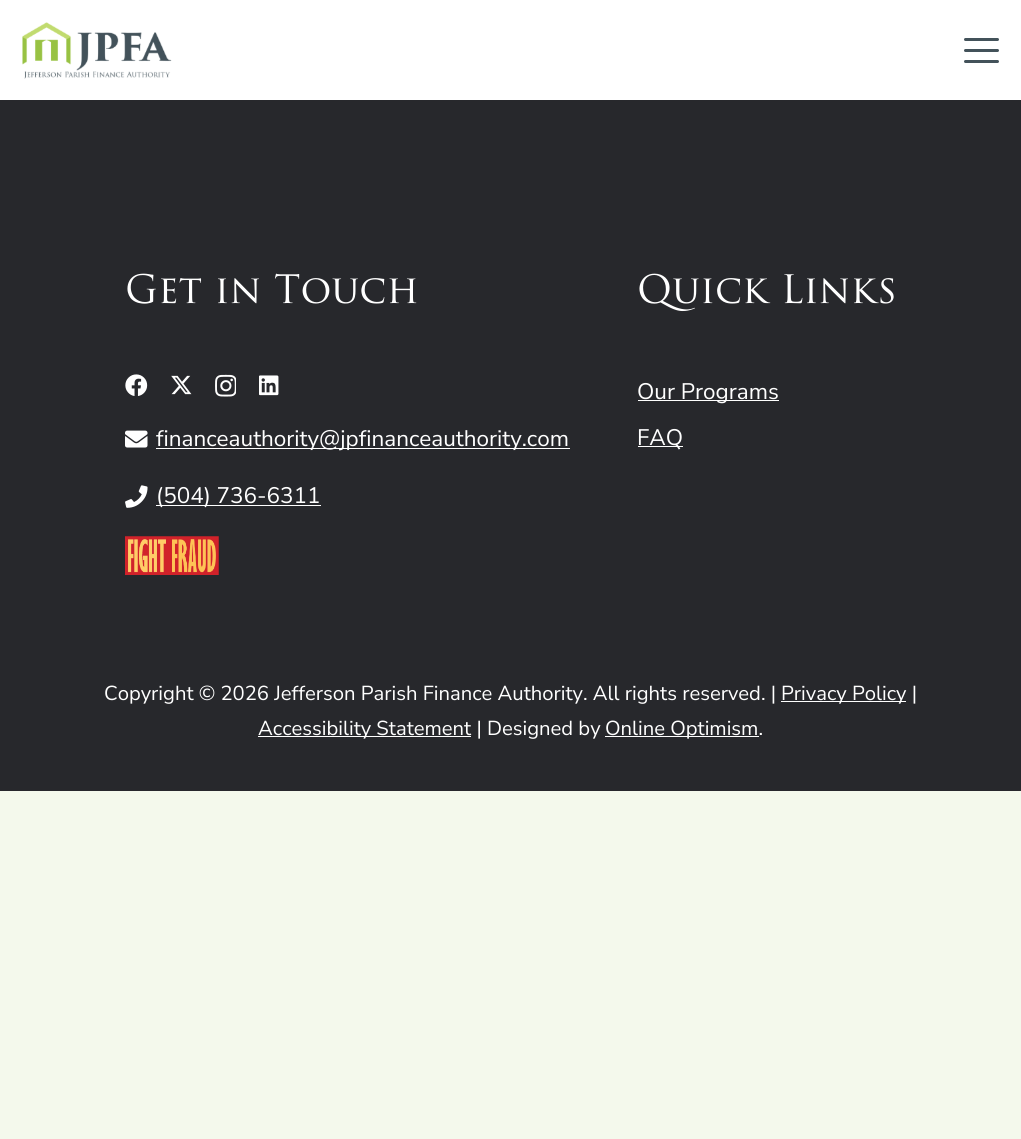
#include <cairo.h>
#include <math.h>
#include <stddef.h>

static cairo_t *c;
static void C(unsigned color){cairo_set_source_rgb(c, (color >> 16) / 255.0, (color >> 8 & 255) / 255.0, (color & 255) / 255.0);}
static void F(const char *family, double size, int italic, int bold){cairo_select_font_face(c, family, italic ? CAIRO_FONT_SLANT_ITALIC : CAIRO_FONT_SLANT_NORMAL,bold ? CAIRO_FONT_WEIGHT_BOLD : CAIRO_FONT_WEIGHT_NORMAL);cairo_set_font_size(c, size);}
static void T(double x, double y, const char *s){cairo_move_to(c, x, y);cairo_show_text(c, s);}
static void R(double x, double y, double w, double h){cairo_rectangle(c, x, y, w, h);cairo_fill(c);}
static void Q(double x, double y, double w, double h, double r){cairo_new_sub_path(c);cairo_arc(c, x + w - r, y + h - r, r, 0, M_PI / 2);cairo_arc(c, x + r, y + h - r, r, M_PI / 2, M_PI);cairo_arc(c, x + r, y + r, r, M_PI, 1.5 * M_PI);cairo_arc(c, x + w - r, y + r, r, 1.5 * M_PI, 2 * M_PI);cairo_close_path(c);}
static void I(const char *path, double x, double y, double w, double h){cairo_surface_t *image = cairo_image_surface_create_from_png(path);cairo_save(c);cairo_set_source_surface(c, image, x, y);cairo_rectangle(c, x, y, w, h);cairo_fill(c);cairo_restore(c);cairo_surface_destroy(image);}
int main(void) {
cairo_surface_t *surface = cairo_image_surface_create(CAIRO_FORMAT_RGB24, 1021, 1139);
c = cairo_create(surface);
cairo_font_options_t *options = cairo_font_options_create();
cairo_font_options_set_hint_metrics(options, CAIRO_HINT_METRICS_OFF);
cairo_font_options_set_hint_style(options, CAIRO_HINT_STYLE_NONE);
cairo_set_font_options(c, options);
cairo_set_miter_limit(c, 4);
C(0xf4f9ec);
cairo_paint(c);
C(0xffffff);
R(0,0,1021,100);
I("1.png",22,22,150,57);
C(0x43525a);
Q(964,49,35,3,1.5);
cairo_fill(c);
Q(964,38,35,3,1.5);
cairo_fill(c);
Q(964,60,35,3,1.5);
cairo_fill(c);
C(0x27282c);
R(0,100,1021,691);
F("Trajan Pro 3",38.25,0,0);
C(0xffffff);
T(125,303,"Get in Touch");
I("2.png",125,374,23,22);
I("3.png",171,375,21,20);
I("4.png",215,374,21,23);
I("5.png",259,375,20,21);
I("6.png",125,430,23,18);
R(156,448,414,1);
F("Nunito Sans",22.5,0,0);
T(156,446,"financeauthority@jpfinanceauthority.com");
I("7.png",125,485,23,23);
R(156,505,165,1);
T(156,503,"(504) 736-6311");
I("8.png",125,536,94,39);
F("Trajan Pro 3",38.25,0,0);
T(637,303,"Quick Links");
R(638,400,141,1);
F("Nunito Sans",22.5,0,0);
T(637,399,"Our Programs");
R(638,446,45,1);
T(637,445,"FAQ");
F("Nunito Sans",20.25,0,0);
T(104,700,"Copyright © 2026 Jefferson Parish Finance Authority. All rights reserved. |");
R(781,701,125,1);
T(781,700,"Privacy Policy |");
R(258,736,213,1);
T(258,735,"Accessibility Statement | Designed by");
R(605,736,154,1);
T(605,735,"Online Optimism.");
cairo_surface_write_to_png(surface, "o.png");
cairo_font_options_destroy(options);
cairo_destroy(c);
cairo_surface_destroy(surface);
return 0;
}
